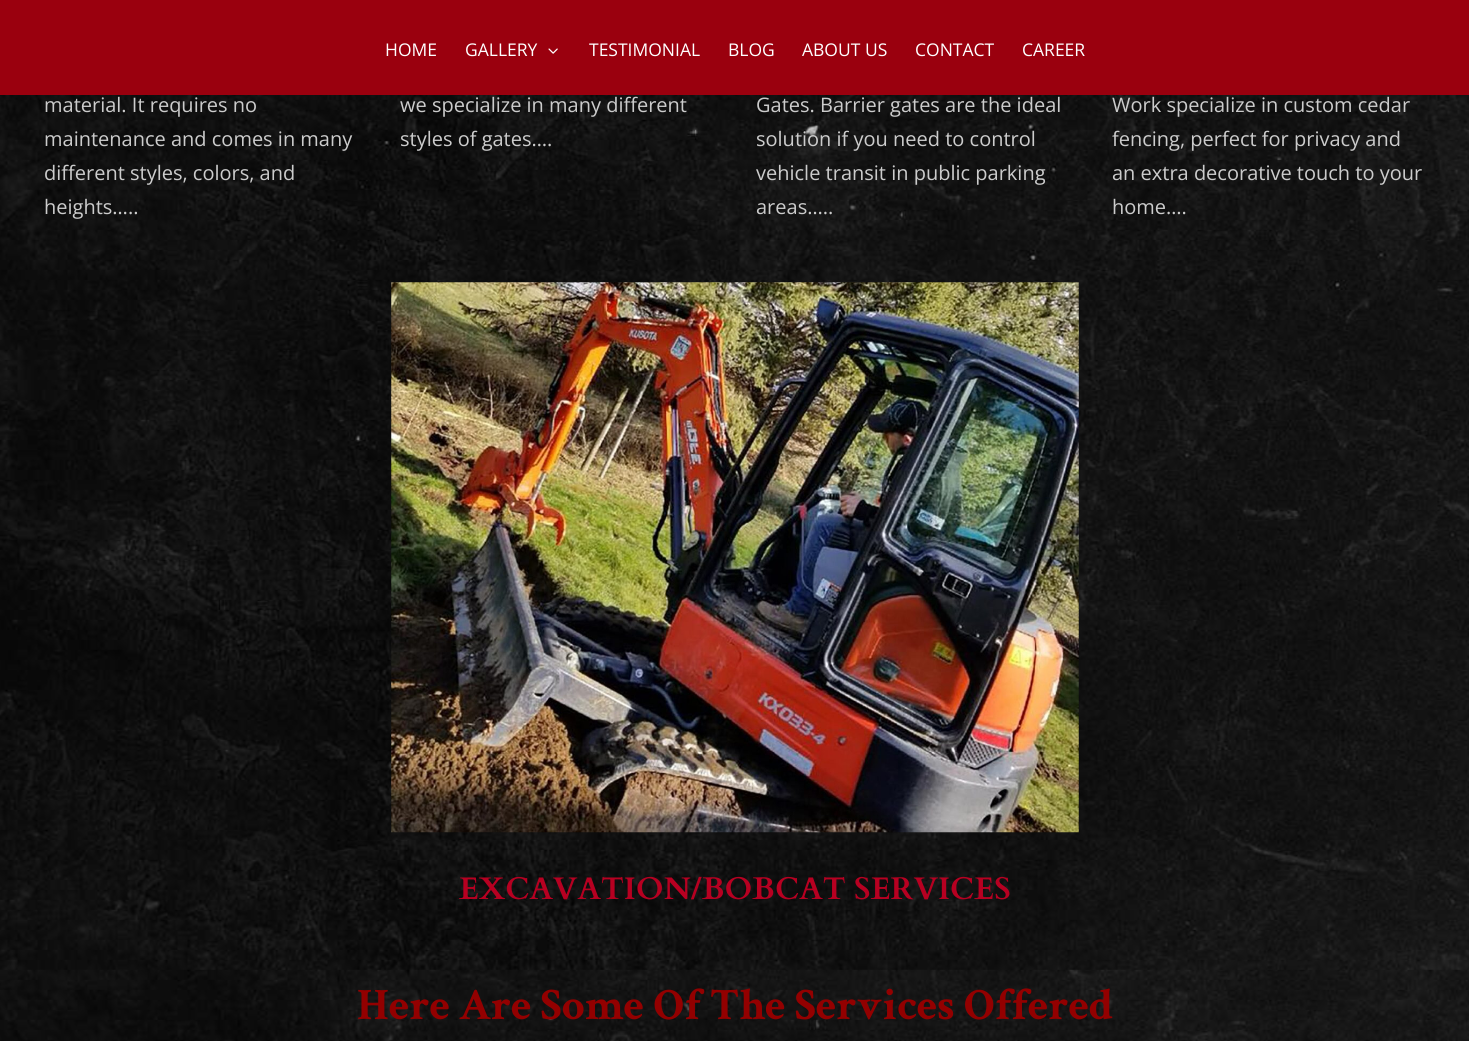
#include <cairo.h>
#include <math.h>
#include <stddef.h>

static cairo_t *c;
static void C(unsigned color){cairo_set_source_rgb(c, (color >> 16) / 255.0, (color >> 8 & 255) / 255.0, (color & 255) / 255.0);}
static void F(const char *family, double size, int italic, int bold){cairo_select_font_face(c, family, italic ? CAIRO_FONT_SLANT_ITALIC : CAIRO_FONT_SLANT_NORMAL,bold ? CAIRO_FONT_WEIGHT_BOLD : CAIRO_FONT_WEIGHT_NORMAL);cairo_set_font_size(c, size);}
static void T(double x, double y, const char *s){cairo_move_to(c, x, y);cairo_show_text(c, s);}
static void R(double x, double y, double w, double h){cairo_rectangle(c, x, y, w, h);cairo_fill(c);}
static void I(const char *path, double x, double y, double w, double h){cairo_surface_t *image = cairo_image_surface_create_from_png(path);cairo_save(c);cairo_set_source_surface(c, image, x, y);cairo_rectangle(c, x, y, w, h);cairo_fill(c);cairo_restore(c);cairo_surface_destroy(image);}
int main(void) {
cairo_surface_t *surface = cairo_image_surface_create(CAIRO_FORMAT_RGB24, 1469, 1041);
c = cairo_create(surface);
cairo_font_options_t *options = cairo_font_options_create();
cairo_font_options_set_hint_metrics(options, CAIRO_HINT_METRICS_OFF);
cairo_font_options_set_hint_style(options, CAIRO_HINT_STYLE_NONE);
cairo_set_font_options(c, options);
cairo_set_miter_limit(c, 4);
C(0xffffff);
cairo_paint(c);
C(0x9a000e);
R(0,0,1469,95);
F("Open Sans",17.5,0,0);
C(0xffffff);
T(385,56,"HOME");
T(465,56,"GALLERY");
I("1.png",548,48,10,6);
T(589,56,"TESTIMONIAL");
T(728,56,"BLOG");
T(802,56,"ABOUT US");
T(915,56,"CONTACT");
T(1022,56,"CAREER");
I("2.png",0,95,1469,946);
F("Open Sans",20,0,0);
C(0xcccccc);
T(44,112,"material. It requires no");
T(44,146,"maintenance and comes in many");
T(44,180,"different styles, colors, and");
T(44,214,"heights…..");
T(400,112,"we specialize in many different");
T(400,146,"styles of gates….");
T(756,112,"Gates. Barrier gates are the ideal");
T(756,146,"solution if you need to control");
T(756,180,"vehicle transit in public parking");
T(756,214,"areas…..");
T(1112,112,"Work specialize in custom cedar");
T(1112,146,"fencing, perfect for privacy and");
T(1112,180,"an extra decorative touch to your");
T(1112,214,"home….");
I("3.png",391,282,688,551);
F("Cardo",31.25,0,1);
C(0xb70021);
T(459,899,"EXCAVATION/BOBCAT SERVICES");
F("Crimson Text",45,0,1);
C(0x930000);
T(357,1019,"Here Are Some Of The Services Offered");
cairo_surface_write_to_png(surface, "o.png");
cairo_font_options_destroy(options);
cairo_destroy(c);
cairo_surface_destroy(surface);
return 0;
}
